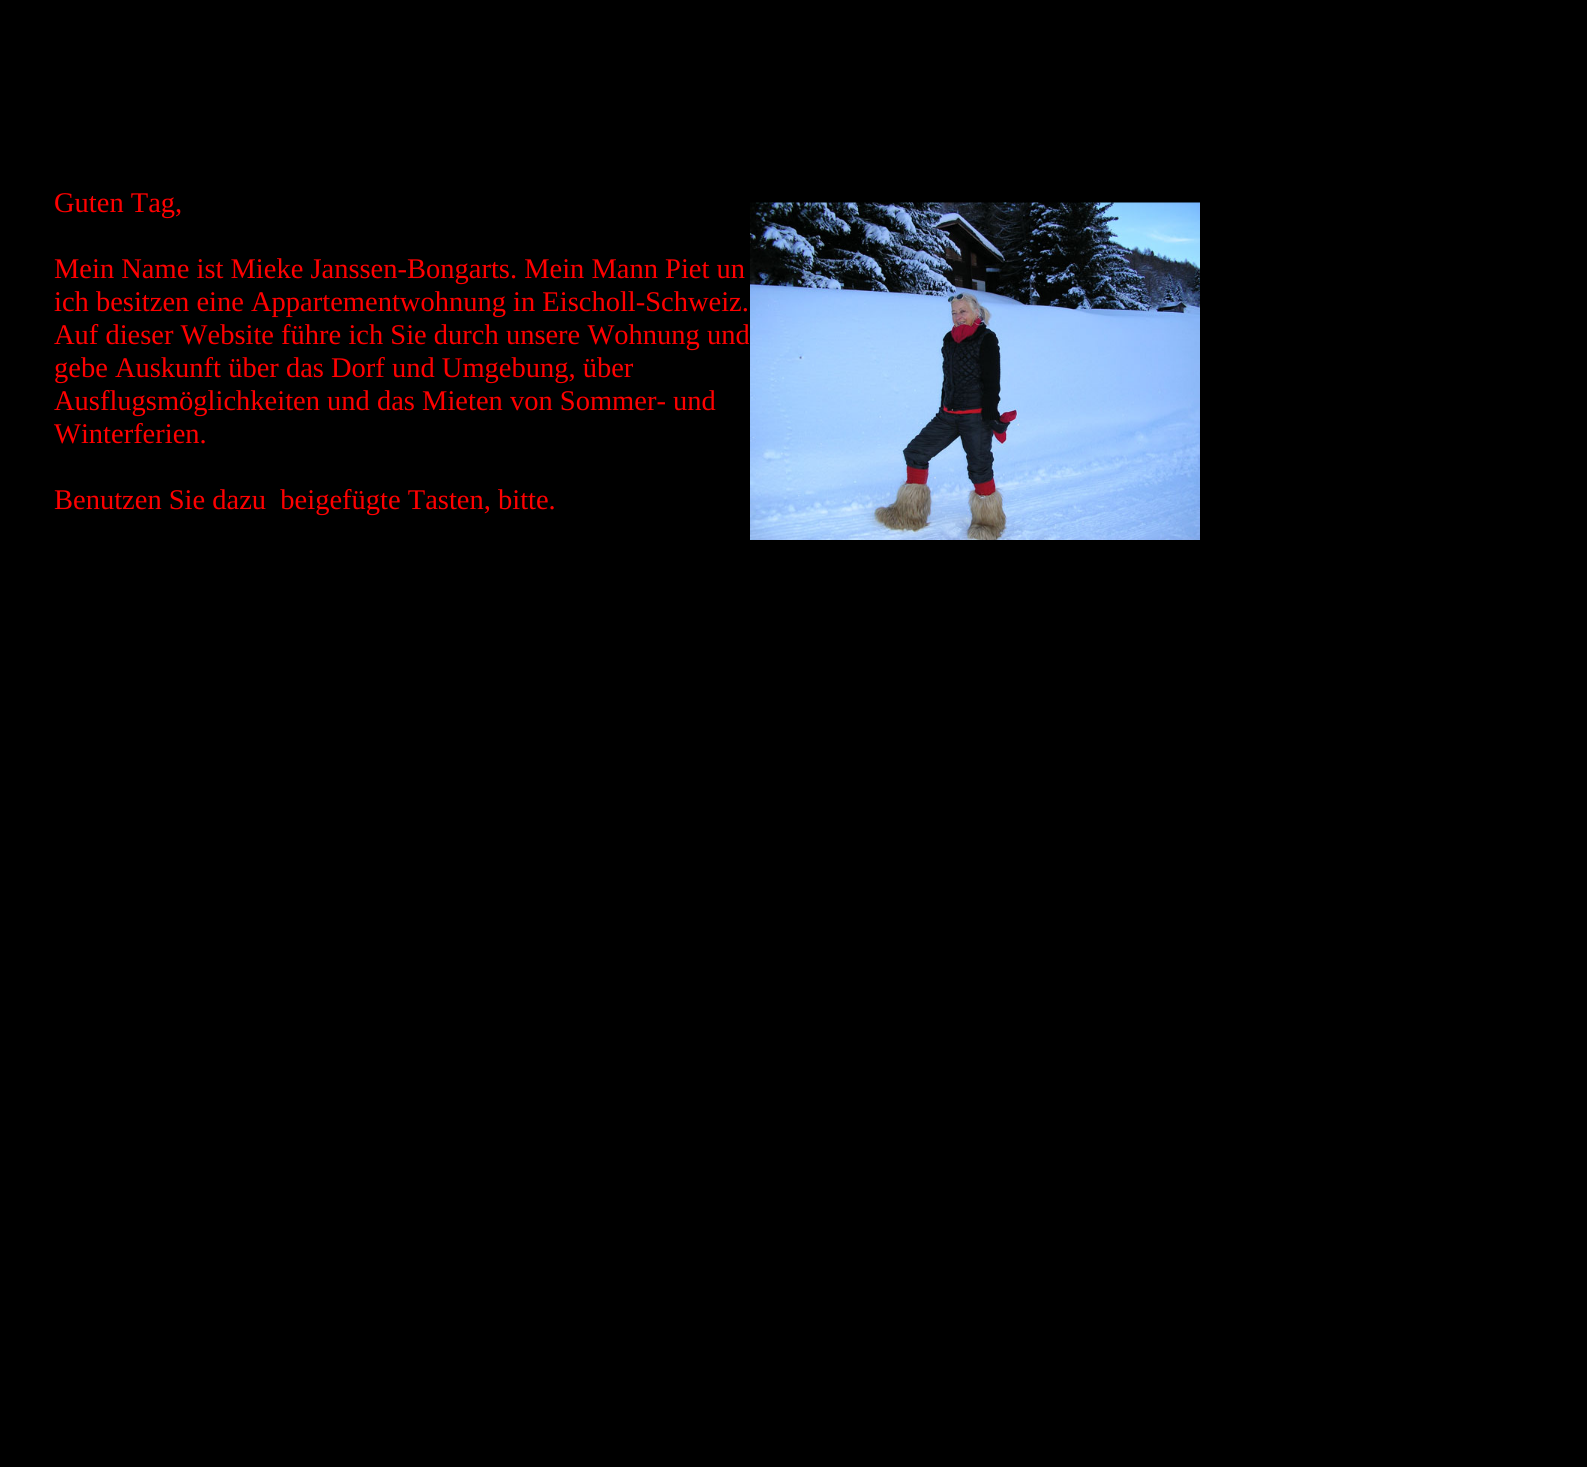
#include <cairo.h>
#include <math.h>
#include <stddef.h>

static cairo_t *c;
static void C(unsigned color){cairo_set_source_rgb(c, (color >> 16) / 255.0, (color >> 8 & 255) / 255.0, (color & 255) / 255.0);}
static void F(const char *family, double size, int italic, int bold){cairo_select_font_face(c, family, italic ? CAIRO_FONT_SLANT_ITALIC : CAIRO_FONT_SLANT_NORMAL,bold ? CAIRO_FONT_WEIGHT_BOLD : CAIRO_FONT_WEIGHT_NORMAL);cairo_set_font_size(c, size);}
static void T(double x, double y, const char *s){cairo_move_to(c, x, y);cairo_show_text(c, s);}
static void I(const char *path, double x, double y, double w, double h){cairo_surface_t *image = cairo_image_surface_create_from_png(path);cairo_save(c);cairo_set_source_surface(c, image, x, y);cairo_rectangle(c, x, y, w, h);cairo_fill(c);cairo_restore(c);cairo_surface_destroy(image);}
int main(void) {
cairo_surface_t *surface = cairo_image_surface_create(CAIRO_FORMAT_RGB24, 1587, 1467);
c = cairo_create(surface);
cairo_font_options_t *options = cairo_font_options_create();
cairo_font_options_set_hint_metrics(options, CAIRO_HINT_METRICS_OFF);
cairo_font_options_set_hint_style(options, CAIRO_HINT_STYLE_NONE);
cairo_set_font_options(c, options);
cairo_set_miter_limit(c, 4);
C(0x000000);
cairo_paint(c);
F("Liberation Serif",28.5,0,0);
C(0xff0000);
T(54,212,"Guten Tag,");
T(54,278,"Mein Name ist Mieke Janssen-Bongarts. Mein Mann Piet un");
T(54,311,"ich besitzen eine Appartementwohnung in Eischoll-Schweiz.");
T(54,344,"Auf dieser Website führe ich Sie durch unsere Wohnung und");
T(54,377,"gebe Auskunft über das Dorf und Umgebung, über");
T(54,410,"Ausflugsmöglichkeiten und das Mieten von Sommer- und");
T(54,443,"Winterferien.");
T(54,509,"Benutzen Sie dazu  beigefügte Tasten, bitte.");
I("1.png",750,202,450,338);
cairo_surface_write_to_png(surface, "o.png");
cairo_font_options_destroy(options);
cairo_destroy(c);
cairo_surface_destroy(surface);
return 0;
}
